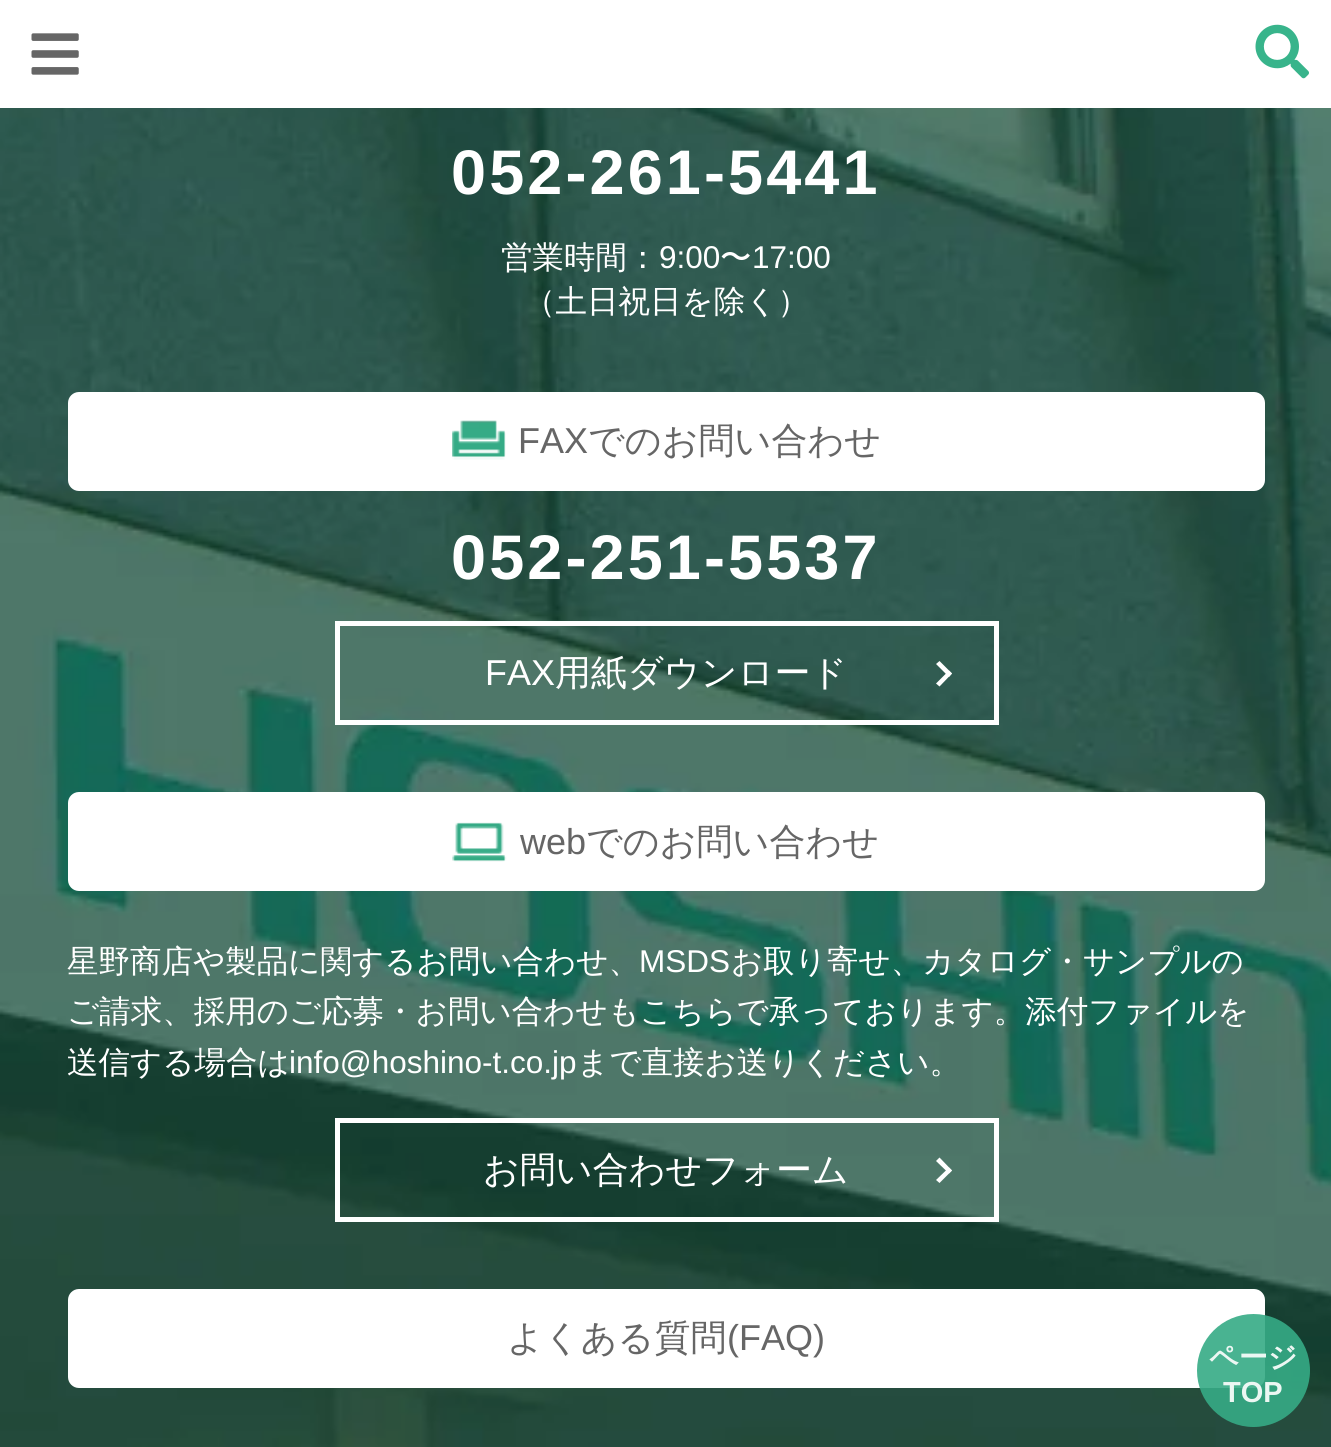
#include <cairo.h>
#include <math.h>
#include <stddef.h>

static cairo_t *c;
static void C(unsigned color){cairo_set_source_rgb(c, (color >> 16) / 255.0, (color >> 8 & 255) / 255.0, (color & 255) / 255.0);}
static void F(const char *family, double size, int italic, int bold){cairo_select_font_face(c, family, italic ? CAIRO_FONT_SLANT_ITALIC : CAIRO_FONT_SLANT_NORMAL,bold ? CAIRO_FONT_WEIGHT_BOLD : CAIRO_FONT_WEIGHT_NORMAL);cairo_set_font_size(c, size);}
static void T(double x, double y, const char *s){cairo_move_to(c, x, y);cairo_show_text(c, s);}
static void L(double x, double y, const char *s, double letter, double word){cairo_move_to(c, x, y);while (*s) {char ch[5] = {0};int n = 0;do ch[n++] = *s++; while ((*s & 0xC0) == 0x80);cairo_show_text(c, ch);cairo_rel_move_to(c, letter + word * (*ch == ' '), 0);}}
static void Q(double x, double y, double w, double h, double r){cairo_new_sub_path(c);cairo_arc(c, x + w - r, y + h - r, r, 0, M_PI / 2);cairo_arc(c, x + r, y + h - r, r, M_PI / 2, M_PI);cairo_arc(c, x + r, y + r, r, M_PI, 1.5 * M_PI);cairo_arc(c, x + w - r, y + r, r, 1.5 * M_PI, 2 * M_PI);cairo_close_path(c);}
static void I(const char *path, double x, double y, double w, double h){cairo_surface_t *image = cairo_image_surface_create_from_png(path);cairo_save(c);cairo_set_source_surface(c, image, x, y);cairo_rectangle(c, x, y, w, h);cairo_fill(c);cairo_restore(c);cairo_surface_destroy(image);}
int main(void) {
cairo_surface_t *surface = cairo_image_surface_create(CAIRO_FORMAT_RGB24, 1331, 1447);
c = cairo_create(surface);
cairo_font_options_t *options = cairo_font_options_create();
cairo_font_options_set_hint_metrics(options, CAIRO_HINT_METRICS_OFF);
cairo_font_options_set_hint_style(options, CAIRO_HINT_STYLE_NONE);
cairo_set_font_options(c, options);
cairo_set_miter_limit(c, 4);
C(0xffffff);
cairo_paint(c);
I("1.png",31,33,48,42);
I("2.png",1255,24,54,55);
I("3.png",0,108,1331,1339);
F("Liberation Sans",63,0,1);
C(0xffffff);
L(451,194,"052-261-5441",3.1,0);
F("WenQuanYi Zen Hei Medium",31.5,0,0);
T(501,268,"営業時間：");
F("Liberation Sans",31.5,0,0);
T(659,268,"9:00");
F("WenQuanYi Zen Hei Medium",31.5,0,0);
T(720,268,"〜");
F("Liberation Sans",31.5,0,0);
T(752,268,"17:00");
F("WenQuanYi Zen Hei Medium",31.5,0,0);
T(524,312,"（土日祝日を除く）");
Q(68,392,1197,99,11);
cairo_fill(c);
I("4.png",452,420,54,40);
F("Liberation Sans",36,0,0);
C(0x666666);
T(518,453,"FAX");
F("WenQuanYi Zen Hei Medium",36,0,0);
T(588,453,"でのお問い合わせ");
F("Liberation Sans",63,0,1);
C(0xffffff);
L(451,579,"052-251-5537",3.1,0);
cairo_rectangle(c,337.5,623.5,659,99);
cairo_set_line_width(c,5);
cairo_stroke(c);
F("Liberation Sans",36,0,0);
T(485,685,"FAX");
F("WenQuanYi Zen Hei Medium",36,0,0);
T(555,685,"用紙ダウンロード");
cairo_new_path(c);
cairo_move_to(c,939.5,661);
cairo_line_to(c,952,673.5);
cairo_line_to(c,949,677);
cairo_line_to(c,936,664);
cairo_close_path(c);
cairo_fill(c);
cairo_new_path(c);
cairo_move_to(c,949,670.5);
cairo_line_to(c,952,673.5);
cairo_line_to(c,939.5,686.5);
cairo_line_to(c,936,683.5);
cairo_close_path(c);
cairo_fill(c);
Q(68,792,1197,99,11);
cairo_fill(c);
I("5.png",452,822,55,40);
F("Liberation Sans",36,0,0);
C(0x666666);
T(520,854,"web");
F("WenQuanYi Zen Hei Medium",36,0,0);
T(586,854,"でのお問い合わせ");
F("WenQuanYi Zen Hei Medium",31.5,0,0);
C(0xffffff);
T(67,972,"星野商店や製品に関するお問い合わせ、");
F("Liberation Sans",31.5,0,0);
T(639,972,"MSDS");
F("WenQuanYi Zen Hei Medium",31.5,0,0);
T(731,972,"お取り寄せ、カタログ・サンプルの");
T(67,1022,"ご請求、採用のご応募・お問い合わせもこちらで承っております。添付ファイルを");
T(67,1073,"送信する場合は");
F("Liberation Sans",31.5,0,0);
T(289,1073,"info@hoshino-t.co.jp");
F("WenQuanYi Zen Hei Medium",31.5,0,0);
T(577,1073,"まで直接お送りください。");
cairo_rectangle(c,337.5,1120.5,659,99);
cairo_stroke(c);
F("WenQuanYi Zen Hei Medium",36,0,0);
T(483,1182,"お問い合わせフォーム");
cairo_new_path(c);
cairo_move_to(c,939.5,1157.5);
cairo_line_to(c,952,1170.5);
cairo_line_to(c,949,1173.5);
cairo_line_to(c,936,1161);
cairo_close_path(c);
cairo_fill(c);
cairo_new_path(c);
cairo_move_to(c,949,1167.5);
cairo_line_to(c,952,1170.5);
cairo_line_to(c,939.5,1183);
cairo_line_to(c,936,1180);
cairo_close_path(c);
cairo_fill(c);
Q(68,1289,1197,99,11);
cairo_fill(c);
C(0x666666);
T(507,1350,"よくある質問");
F("Liberation Sans",36,0,0);
T(727,1350,"(FAQ)");
cairo_set_source_rgba(c,0.212,0.671,0.522,0.9);
cairo_new_path(c);
cairo_arc(c,1253.5,1370.5,56.5,0,2 * M_PI);
cairo_fill(c);
F("WenQuanYi Zen Hei",29,0,1);
C(0xecf7f3);
T(1209,1367,"ページ");
F("Liberation Sans",29,0,1);
T(1223,1402,"TOP");
cairo_surface_write_to_png(surface, "o.png");
cairo_font_options_destroy(options);
cairo_destroy(c);
cairo_surface_destroy(surface);
return 0;
}
